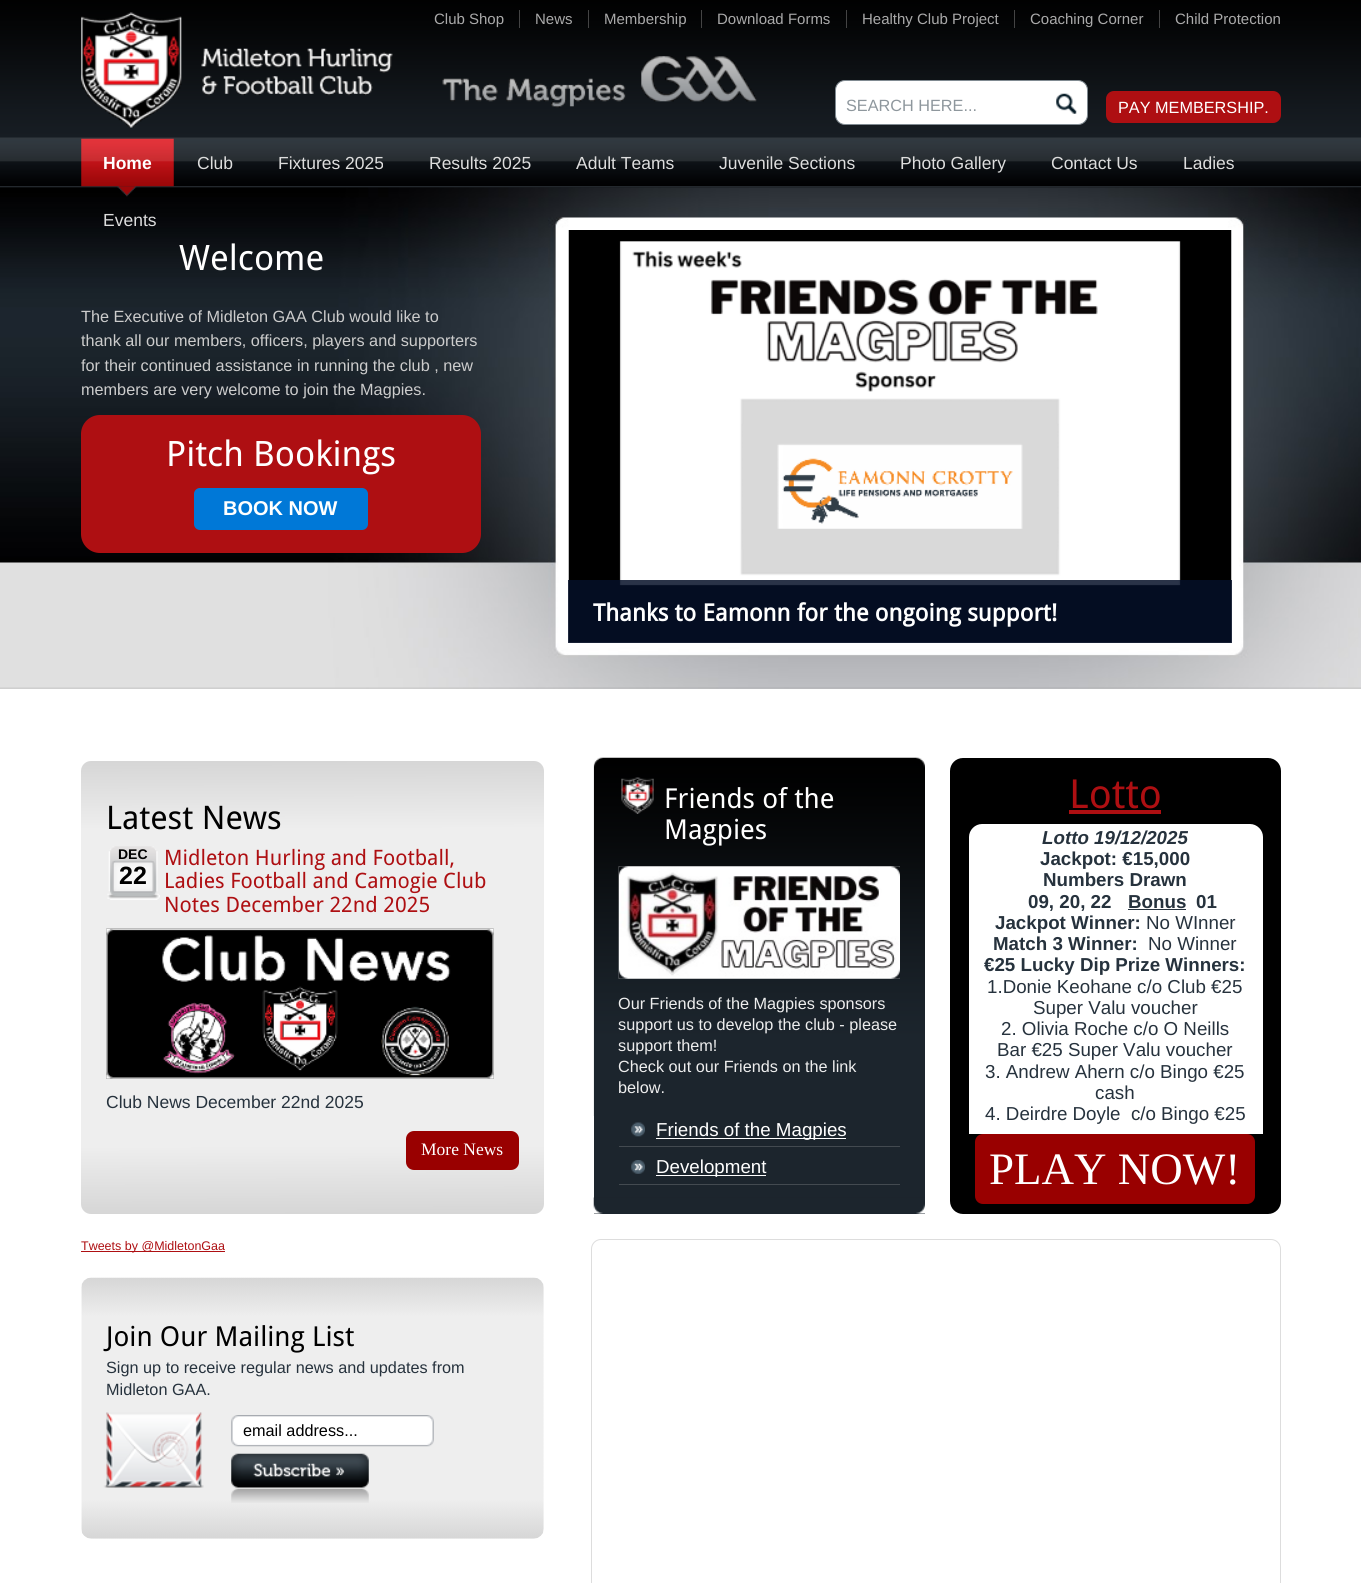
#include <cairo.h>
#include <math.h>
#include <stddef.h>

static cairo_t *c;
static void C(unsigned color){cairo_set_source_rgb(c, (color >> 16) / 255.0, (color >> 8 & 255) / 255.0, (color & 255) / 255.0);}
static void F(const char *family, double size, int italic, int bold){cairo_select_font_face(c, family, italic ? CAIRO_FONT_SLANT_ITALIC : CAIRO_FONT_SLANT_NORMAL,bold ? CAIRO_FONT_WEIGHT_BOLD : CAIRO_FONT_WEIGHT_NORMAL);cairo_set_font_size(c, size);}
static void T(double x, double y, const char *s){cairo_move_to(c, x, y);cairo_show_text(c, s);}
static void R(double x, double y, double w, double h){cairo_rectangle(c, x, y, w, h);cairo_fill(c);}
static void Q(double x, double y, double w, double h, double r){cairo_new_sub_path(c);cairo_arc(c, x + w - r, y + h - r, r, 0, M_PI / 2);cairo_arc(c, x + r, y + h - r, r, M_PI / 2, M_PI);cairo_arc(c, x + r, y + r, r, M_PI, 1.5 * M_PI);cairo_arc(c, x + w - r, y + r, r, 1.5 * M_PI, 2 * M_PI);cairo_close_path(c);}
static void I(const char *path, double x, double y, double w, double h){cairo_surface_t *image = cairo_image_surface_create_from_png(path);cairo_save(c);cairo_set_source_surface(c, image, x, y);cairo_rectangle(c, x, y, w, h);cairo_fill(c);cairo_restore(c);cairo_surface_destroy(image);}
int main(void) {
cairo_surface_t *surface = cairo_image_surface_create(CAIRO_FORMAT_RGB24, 1361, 1583);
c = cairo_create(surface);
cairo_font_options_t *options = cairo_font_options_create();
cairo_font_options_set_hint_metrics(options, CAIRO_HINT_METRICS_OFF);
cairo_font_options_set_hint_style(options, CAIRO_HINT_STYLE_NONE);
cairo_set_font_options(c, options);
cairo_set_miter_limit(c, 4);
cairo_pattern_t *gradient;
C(0xffffff);
cairo_paint(c);
I("1.png",0,0,1361,689);
I("2.png",81,12,312,116);
F("Liberation Sans",15,0,0);
C(0xaaaaaa);
T(434,24,"Club Shop");
T(535,24,"News");
C(0x444444);
R(519,10,1,18);
C(0xaaaaaa);
T(604,24,"Membership");
C(0x444444);
R(588,10,1,18);
C(0xaaaaaa);
T(717,24,"Download Forms");
C(0x444444);
R(701,10,1,18);
C(0xaaaaaa);
T(862,24,"Healthy Club Project");
C(0x444444);
R(846,10,1,18);
C(0xaaaaaa);
T(1030,24,"Coaching Corner");
C(0x444444);
R(1014,10,1,18);
C(0xaaaaaa);
T(1175,24,"Child Protection");
C(0x444444);
R(1159,10,1,18);
I("3.png",442,56,315,52);
C(0xffffff);
Q(835.5,80.5,252,44,9.5);
cairo_fill_preserve(c);
C(0x808a91);
cairo_set_line_width(c,1);
cairo_stroke(c);
F("Liberation Sans",16.25,0,0);
C(0x8e979d);
T(846,111,"SEARCH HERE...");
I("4.png",1056,93,21,21);
C(0xae0f12);
Q(1106,91,175,32,8);
cairo_fill(c);
C(0xffffff);
T(1118,113,"PAY MEMBERSHIP.");
I("7.png",0,187,1361,502);
I("5.png",117,186,20,11);
I("6.png",81,138,93,49);
F("Liberation Sans",17.5,0,1);
T(103,169,"Home");
F("Liberation Sans",17.5,0,0);
C(0xdddddd);
T(197,169,"Club");
T(278,169,"Fixtures 2025");
T(429,169,"Results 2025");
T(576,169,"Adult Teams");
T(719,169,"Juvenile Sections");
T(900,169,"Photo Gallery");
T(1051,169,"Contact Us");
T(1183,169,"Ladies");
T(103,226,"Events");
F("Droid Sans",35,0,0);
C(0xffffff);
T(179,270,"Welcome");
F("Liberation Sans",16.25,0,0);
C(0xcccccc);
T(81,322,"The Executive of Midleton GAA Club would like to");
T(81,346,"thank all our members, officers, players and supporters");
T(81,371,"for their continued assistance in running the club , new");
T(81,395,"members are very welcome to join the Magpies.");
C(0xae0f12);
Q(81,415,400,138,19);
cairo_fill(c);
F("Droid Sans",35,0,0);
C(0xffffff);
T(166,466,"Pitch Bookings");
C(0x0078d7);
Q(194,488,174,42,6);
cairo_fill(c);
F("Liberation Sans",20,0,1);
C(0xffffff);
T(223,515,"BOOK NOW");
I("8.png",568,230,664,413);
cairo_set_source_rgba(c,0.02,0.063,0.157,0.85);
R(568,580,664,63);
F("Droid Sans",23.75,0,1);
C(0xffffff);
T(593,621,"Thanks to Eamonn for the ongoing support!");
gradient = cairo_pattern_create_linear(312,761,313,1214);
cairo_pattern_add_color_stop_rgba(gradient,0,0.839,0.839,0.839,1);
cairo_pattern_add_color_stop_rgba(gradient,.15,0.933,0.933,0.933,1);
cairo_pattern_add_color_stop_rgba(gradient,.85,0.933,0.933,0.933,1);
cairo_pattern_add_color_stop_rgba(gradient,1,0.839,0.839,0.839,1);
cairo_set_source(c,gradient);
cairo_pattern_destroy(gradient);
Q(81,761,463,453,10);
cairo_fill(c);
F("Droid Sans",32.5,0,0);
C(0x000000);
T(106,829,"Latest News");
I("9.png",107,846,53,54);
F("Liberation Sans",14,0,1);
T(118,859,"DEC");
F("Liberation Sans",25,0,1);
T(119,884,"22");
F("Droid Sans",21.25,0,0);
C(0xae0f12);
T(164,865,"Midleton Hurling and Football,");
T(164,888,"Ladies Football and Camogie Club");
T(164,912,"Notes December 22nd 2025");
I("10.png",106,928,388,151);
I("11.png",106,928,388,151);
F("Liberation Sans",17.5,0,0);
C(0x26323d);
T(106,1108,"Club News December 22nd 2025");
C(0x990000);
Q(406,1131,113,39,8);
cairo_fill(c);
F("Liberation Serif",17.5,0,0);
C(0xffffff);
T(421,1155,"More News");
C(0xae0f12);
R(81,1251,144,1);
F("Liberation Sans",12.5,0,0);
T(81,1250,"Tweets by @MidletonGaa");
I("12.png",81,1277,463,262);
F("Droid Sans",27.5,0,0);
C(0x000000);
T(106,1346,"Join Our Mailing List");
F("Liberation Sans",16.25,0,0);
C(0x26323d);
T(106,1373,"Sign up to receive regular news and updates from");
T(106,1395,"Midleton GAA.");
I("13.png",231,1415,203,32);
C(0x000000);
T(243,1436,"email address...");
I("14.png",231,1453,138,50);
C(0x1c252d);
R(594,1116,331,98);
I("15.png",593,1197,332,17);
I("16.png",593,757,332,359);
I("17.png",621,777,33,37);
F("Droid Sans",27.5,0,0);
C(0xffffff);
T(664,808,"Friends of the");
T(664,839,"Magpies");
I("18.png",618,866,282,113);
I("19.png",618,866,282,113);
F("Liberation Sans",16.25,0,0);
C(0xeeeeee);
T(618,1009,"Our Friends of the Magpies sponsors");
T(618,1030,"support us to develop the club - please");
T(618,1051,"support them!");
T(618,1072,"Check out our Friends on the link");
T(618,1093,"below.");
I("20.png",631,1122,14,15);
C(0x434a50);
R(619,1146,281,1);
C(0xffffff);
R(656,1138,190,1);
F("Liberation Sans",18.75,0,0);
T(656,1136,"Friends of the Magpies");
I("21.png",631,1160,14,14);
C(0x434a50);
R(619,1184,281,1);
C(0xffffff);
R(656,1175,110,1);
T(656,1173,"Development");
C(0x000000);
Q(950,758,331,456,13);
cairo_fill(c);
F("Droid Sans",40,0,0);
C(0xae0f12);
T(1069,808,"Lotto");
R(1069,810,92,4);
C(0xffffff);
cairo_new_path(c);
cairo_move_to(c,982,824);
cairo_line_to(c,1250,824);
cairo_curve_to(c,1257,824,1263,830,1263,837);
cairo_line_to(c,1263,1134);
cairo_line_to(c,969,1134);
cairo_line_to(c,969,837);
cairo_curve_to(c,969,830,975,824,982,824);
cairo_close_path(c);
cairo_fill(c);
F("Liberation Sans",18.75,1,1);
C(0x26323d);
T(1042,844,"Lotto 19/12/2025");
F("Liberation Sans",18.75,0,1);
T(1040,865,"Jackpot: €15,000");
T(1043,886,"Numbers Drawn");
T(1028,908,"09, 20, 22");
T(1128,908,"Bonus");
R(1128,909,58,1);
T(1196,908,"01");
T(995,929,"Jackpot Winner:");
F("Liberation Sans",18.75,0,0);
T(1146,929,"No WInner");
F("Liberation Sans",18.75,0,1);
T(993,950,"Match 3 Winner:");
F("Liberation Sans",18.75,0,0);
T(1148,950,"No Winner");
F("Liberation Sans",18.75,0,1);
T(984,971,"€25 Lucky Dip Prize Winners:");
F("Liberation Sans",18.75,0,0);
T(987,993,"1.Donie Keohane c/o Club €25");
T(1033,1014,"Super Valu voucher");
T(1001,1035,"2. Olivia Roche c/o O Neills");
T(997,1056,"Bar €25 Super Valu voucher");
T(985,1078,"3. Andrew Ahern c/o Bingo €25");
T(1095,1099,"cash");
T(985,1120,"4. Deirdre Doyle  c/o Bingo €25");
C(0x990000);
Q(975,1134,280,70,8);
cairo_fill(c);
F("Liberation Serif",45,0,0);
C(0xffffff);
T(989,1184,"PLAY NOW!");
Q(591.5,1239.5,689,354,9.5);
C(0xdddddd);
cairo_stroke(c);
cairo_surface_write_to_png(surface, "o.png");
cairo_font_options_destroy(options);
cairo_destroy(c);
cairo_surface_destroy(surface);
return 0;
}
